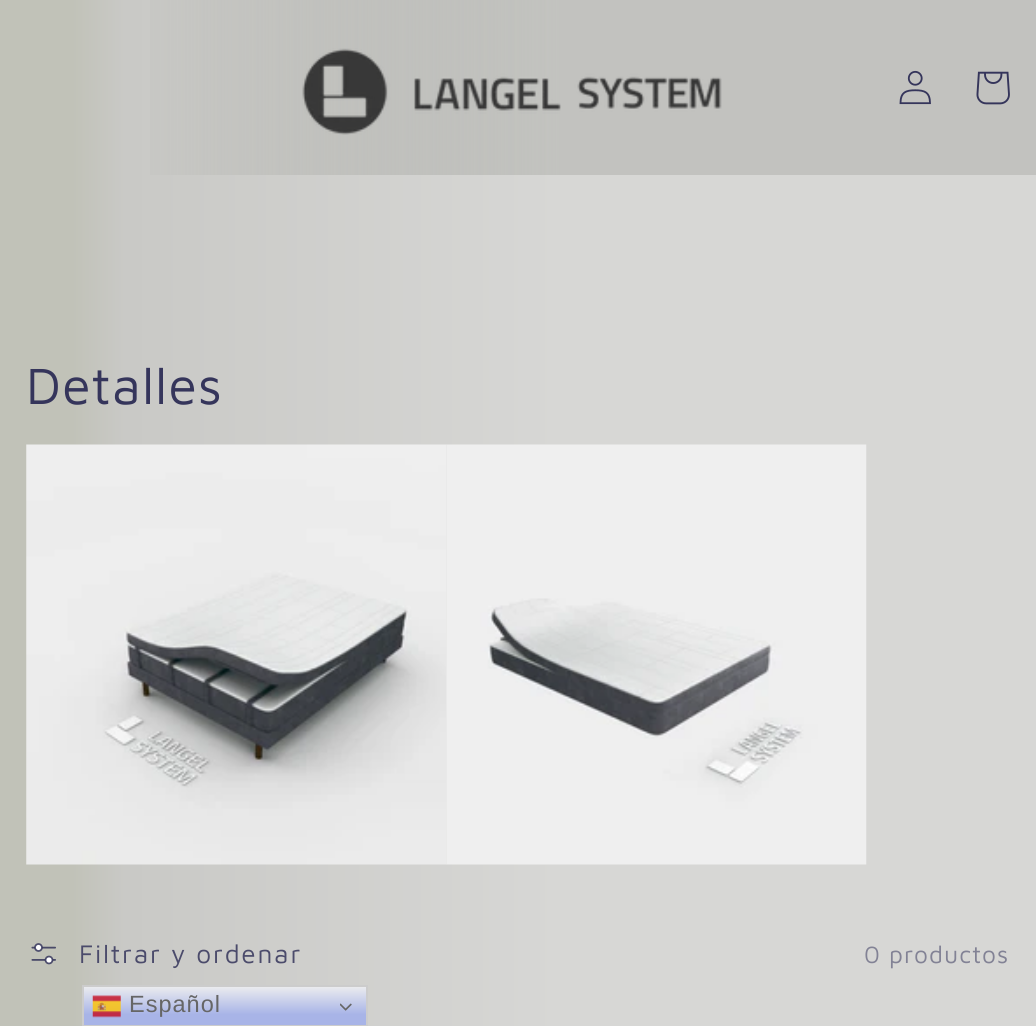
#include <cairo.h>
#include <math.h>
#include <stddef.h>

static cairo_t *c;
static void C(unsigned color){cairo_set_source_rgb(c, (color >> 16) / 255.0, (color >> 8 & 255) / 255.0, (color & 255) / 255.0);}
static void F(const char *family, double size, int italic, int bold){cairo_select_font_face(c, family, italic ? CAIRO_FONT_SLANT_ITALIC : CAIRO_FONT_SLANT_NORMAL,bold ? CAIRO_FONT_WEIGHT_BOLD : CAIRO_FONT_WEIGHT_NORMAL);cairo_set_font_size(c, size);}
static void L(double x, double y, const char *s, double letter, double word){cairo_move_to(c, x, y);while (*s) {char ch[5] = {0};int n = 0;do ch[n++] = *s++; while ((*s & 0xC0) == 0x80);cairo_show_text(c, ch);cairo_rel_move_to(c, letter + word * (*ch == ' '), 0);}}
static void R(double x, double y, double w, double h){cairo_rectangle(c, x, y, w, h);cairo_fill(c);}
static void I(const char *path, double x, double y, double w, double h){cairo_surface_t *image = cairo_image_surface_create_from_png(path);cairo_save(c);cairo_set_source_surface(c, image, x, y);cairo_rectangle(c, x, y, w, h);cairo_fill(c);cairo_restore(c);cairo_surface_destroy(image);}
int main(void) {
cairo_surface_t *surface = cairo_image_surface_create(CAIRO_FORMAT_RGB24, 1036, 1026);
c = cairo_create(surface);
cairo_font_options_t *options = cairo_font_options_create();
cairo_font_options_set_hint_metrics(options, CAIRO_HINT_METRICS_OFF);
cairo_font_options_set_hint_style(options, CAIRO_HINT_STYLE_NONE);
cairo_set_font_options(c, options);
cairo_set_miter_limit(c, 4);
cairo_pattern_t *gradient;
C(0xffffff);
cairo_paint(c);
gradient = cairo_pattern_create_linear(0,514,1036,514);
cairo_pattern_add_color_stop_rgba(gradient,.07,0.757,0.761,0.722,1);
cairo_pattern_add_color_stop_rgba(gradient,.12,0.788,0.788,0.776,1);
cairo_pattern_add_color_stop_rgba(gradient,.54,0.843,0.843,0.835,1);
cairo_pattern_add_color_stop_rgba(gradient,.97,0.843,0.843,0.835,1);
cairo_set_source(c,gradient);
cairo_pattern_destroy(gradient);
R(0,0,1036,1026);
gradient = cairo_pattern_create_linear(0,514,1036,514);
cairo_pattern_add_color_stop_rgba(gradient,.07,0.757,0.761,0.722,1);
cairo_pattern_add_color_stop_rgba(gradient,.12,0.788,0.788,0.776,1);
cairo_pattern_add_color_stop_rgba(gradient,.54,0.682,0.686,0.667,.5);
cairo_pattern_add_color_stop_rgba(gradient,.97,0.682,0.686,0.667,.5);
cairo_set_source(c,gradient);
cairo_pattern_destroy(gradient);
R(150,0,886,175);
I("1.png",302,48,420,87);
I("2.png",899,70,32,35);
I("3.png",976,71,34,34);
F("Maven Pro",52.5,0,0);
C(0x35355b);
L(26,404,"Detalles",1,0);
I("4.png",26,444,421,421);
I("5.png",446,444,421,421);
I("6.png",31,943,25,22);
F("Maven Pro",26.25,0,0);
C(0x4b4b6b);
L(79,963,"Filtrar y ordenar",1.75,0);
F("Maven Pro",24.5,0,0);
C(0x828295);
L(864,963,"0 productos",1,0);
gradient = cairo_pattern_create_linear(225,985,225,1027);
cairo_pattern_add_color_stop_rgba(gradient,0,0.937,0.937,0.937,1);
cairo_pattern_add_color_stop_rgba(gradient,.7,0.659,0.706,0.906,1);
cairo_set_source(c,gradient);
cairo_pattern_destroy(gradient);
R(84,987,282,38);
cairo_rectangle(c,83,986,284,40);
C(0xcccccc);
cairo_stroke(c);
I("7.png",92,995,29,23);
F("Liberation Sans",23.5,0,0);
C(0x666666);
L(129,1012,"Español",1,0);
I("8.png",340,1003,12,8);
cairo_surface_write_to_png(surface, "o.png");
cairo_font_options_destroy(options);
cairo_destroy(c);
cairo_surface_destroy(surface);
return 0;
}
